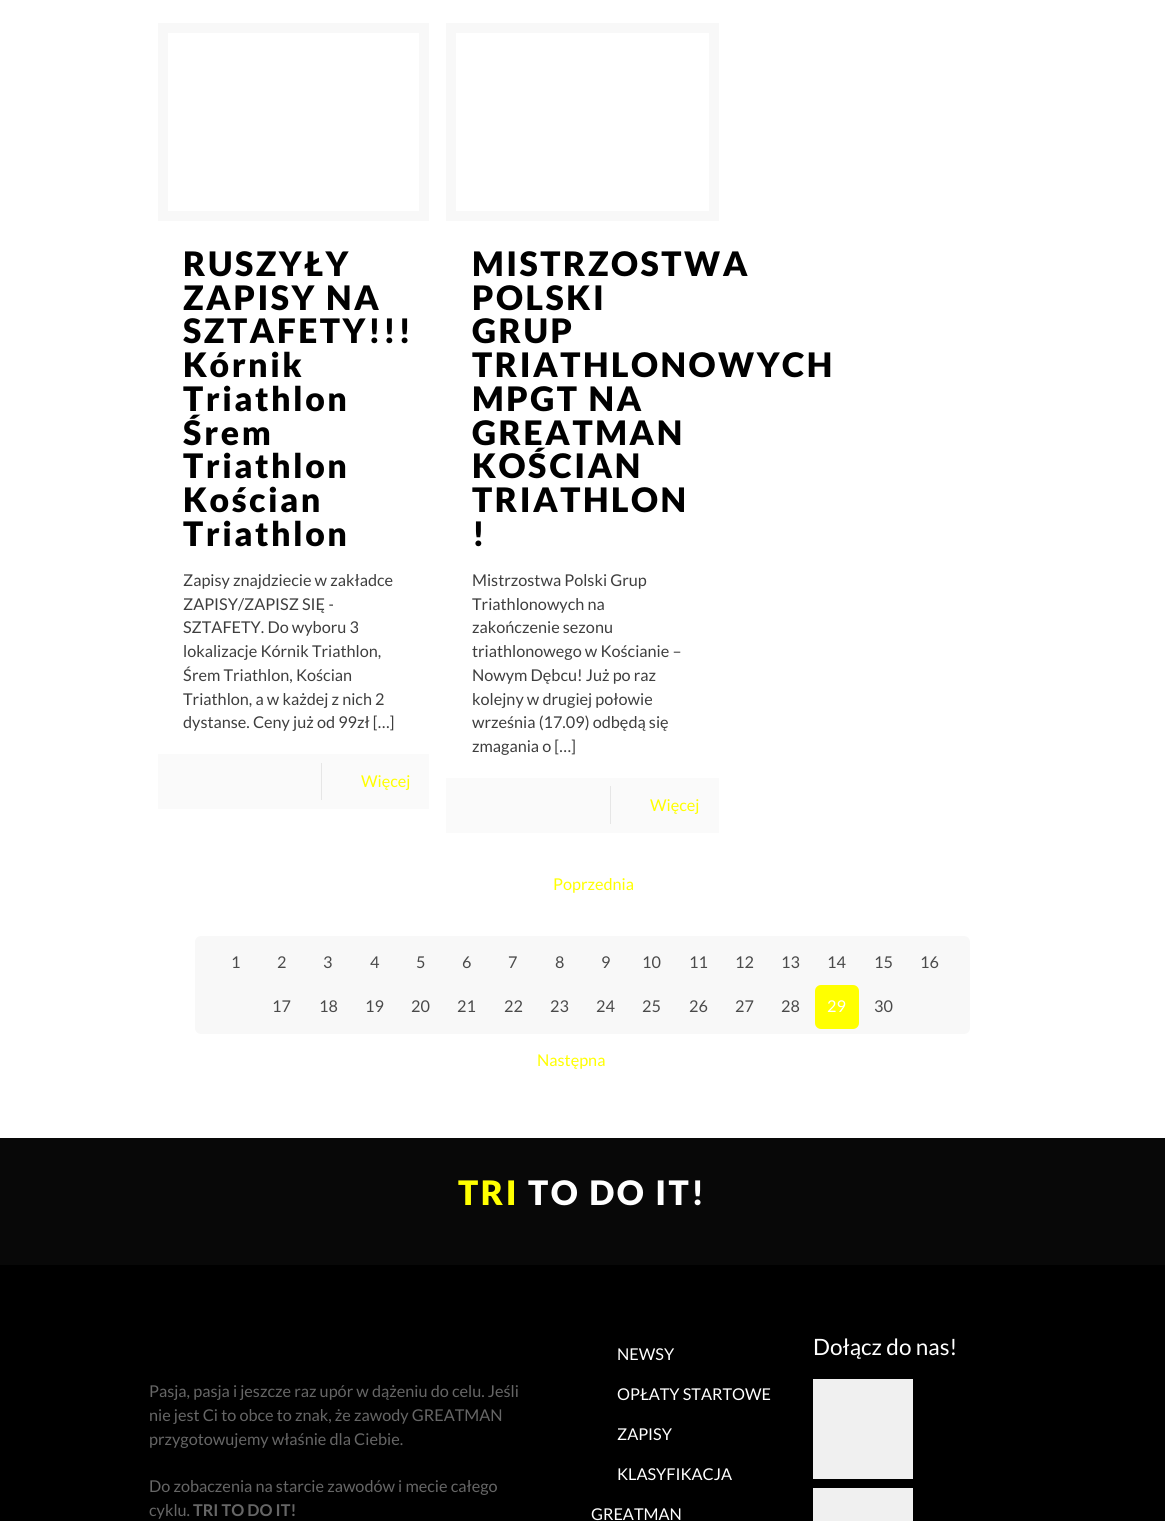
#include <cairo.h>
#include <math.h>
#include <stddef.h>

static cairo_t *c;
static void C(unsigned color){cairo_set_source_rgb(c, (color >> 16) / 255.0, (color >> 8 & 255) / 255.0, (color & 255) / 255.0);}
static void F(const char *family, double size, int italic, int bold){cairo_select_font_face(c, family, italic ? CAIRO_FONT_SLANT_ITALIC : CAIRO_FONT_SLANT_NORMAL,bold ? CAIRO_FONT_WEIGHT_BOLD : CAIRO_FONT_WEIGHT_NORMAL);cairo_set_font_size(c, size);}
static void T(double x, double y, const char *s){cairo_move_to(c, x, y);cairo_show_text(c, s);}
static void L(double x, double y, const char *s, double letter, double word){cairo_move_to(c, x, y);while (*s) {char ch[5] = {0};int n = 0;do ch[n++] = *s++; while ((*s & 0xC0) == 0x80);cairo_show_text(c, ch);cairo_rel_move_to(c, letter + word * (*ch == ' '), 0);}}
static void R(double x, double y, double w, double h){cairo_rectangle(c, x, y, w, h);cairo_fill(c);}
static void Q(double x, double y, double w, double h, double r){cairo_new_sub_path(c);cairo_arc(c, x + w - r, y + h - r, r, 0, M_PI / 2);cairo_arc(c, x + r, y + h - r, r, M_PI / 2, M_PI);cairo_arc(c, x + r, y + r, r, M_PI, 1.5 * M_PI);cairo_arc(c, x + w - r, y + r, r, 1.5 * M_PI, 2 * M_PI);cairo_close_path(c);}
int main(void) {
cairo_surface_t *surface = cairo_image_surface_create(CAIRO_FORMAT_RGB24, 1165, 1521);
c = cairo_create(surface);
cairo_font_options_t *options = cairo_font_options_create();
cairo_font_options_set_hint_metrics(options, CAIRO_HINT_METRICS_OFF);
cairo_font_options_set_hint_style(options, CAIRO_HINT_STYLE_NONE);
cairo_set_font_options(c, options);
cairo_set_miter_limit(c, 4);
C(0xffffff);
cairo_paint(c);
cairo_rectangle(c,163,28,261,188);
C(0xf8f8f8);
cairo_set_line_width(c,10);
cairo_stroke(c);
F("Lato Black",33.75,0,0);
C(0x000000);
L(183,276,"RUSZYŁY",2.5,0);
L(183,310,"ZAPISY NA",2.5,0);
L(183,343,"SZTAFETY!!!",2.5,0);
L(183,377,"Kórnik",2.5,0);
L(183,411,"Triathlon",2.5,0);
L(183,445,"Śrem",2.5,0);
L(183,478,"Triathlon",2.5,0);
L(183,512,"Kościan",2.5,0);
L(183,546,"Triathlon",2.5,0);
F("Lato",16.25,0,0);
C(0x3e3e3e);
T(183,586,"Zapisy znajdziecie w zakładce");
T(183,610,"ZAPISY/ZAPISZ SIĘ -");
T(183,633,"SZTAFETY. Do wyboru 3");
T(183,657,"lokalizacje Kórnik Triathlon,");
T(183,681,"Śrem Triathlon, Kościan");
T(183,705,"Triathlon, a w każdej z nich 2");
T(183,728,"dystanse. Ceny już od 99zł […]");
C(0xfafafa);
R(158,754,271,55);
C(0xe6e6e6);
R(321,763,1,37);
C(0xffff00);
T(361,787,"Więcej");
cairo_rectangle(c,451,28,263,188);
C(0xf8f8f8);
cairo_stroke(c);
F("Lato Black",33.75,0,0);
C(0x000000);
L(472,276,"MISTRZOSTWA",2.5,0);
L(472,310,"POLSKI",2.5,0);
L(472,343,"GRUP",2.5,0);
L(472,377,"TRIATHLONOWYCH",2.5,0);
L(472,411,"MPGT NA",2.5,0);
L(472,445,"GREATMAN",2.5,0);
L(472,478,"KOŚCIAN",2.5,0);
L(472,512,"TRIATHLON",2.5,0);
L(472,546,"!",2.5,0);
F("Lato",16.25,0,0);
C(0x3e3e3e);
T(472,586,"Mistrzostwa Polski Grup");
T(472,610,"Triathlonowych na");
T(472,633,"zakończenie sezonu");
T(472,657,"triathlonowego w Kościanie –");
T(472,681,"Nowym Dębcu! Już po raz");
T(472,705,"kolejny w drugiej połowie");
T(472,728,"września (17.09) odbędą się");
T(472,752,"zmagania o […]");
C(0xfafafa);
R(446,778,273,55);
C(0xe6e6e6);
R(610,786,1,38);
C(0xffff00);
T(650,811,"Więcej");
T(553,890,"Poprzednia");
C(0xf8f8f8);
Q(195,936,775,98,6);
cairo_fill(c);
C(0x4a4a4a);
T(231,968,"1");
T(277,968,"2");
T(323,968,"3");
T(370,968,"4");
T(416,968,"5");
T(462,968,"6");
T(508,968,"7");
T(555,968,"8");
T(601,968,"9");
T(642,968,"10");
T(689,968,"11");
T(735,968,"12");
T(781,968,"13");
T(827,968,"14");
T(874,968,"15");
T(920,968,"16");
T(272,1012,"17");
T(319,1012,"18");
T(365,1012,"19");
T(411,1012,"20");
T(457,1012,"21");
T(504,1012,"22");
T(550,1012,"23");
T(596,1012,"24");
T(642,1012,"25");
T(689,1012,"26");
T(735,1012,"27");
T(781,1012,"28");
C(0xffff00);
Q(815,985,44,44,6);
cairo_fill(c);
C(0xffffff);
T(827,1012,"29");
C(0x4a4a4a);
T(874,1012,"30");
C(0xffff00);
T(537,1066,"Następna");
C(0x000000);
R(0,1265,1165,256);
C(0x080808);
R(0,1138,1165,127);
F("Lato Black",33.75,0,0);
C(0xffff00);
L(458,1205,"TRI",2.5,0);
C(0xffffff);
L(528,1205,"TO DO IT!",2.5,0);
F("Lato",16.25,0,0);
C(0x666666);
T(149,1397,"Pasja, pasja i jeszcze raz upór w dążeniu do celu. Jeśli");
T(149,1421,"nie jest Ci to obce to znak, że zawody GREATMAN");
T(149,1445,"przygotowujemy właśnie dla Ciebie.");
T(149,1492,"Do zobaczenia na starcie zawodów i mecie całego");
T(149,1516,"cyklu.");
F("Lato",16.25,0,1);
T(193,1516,"TRI TO DO IT!");
F("Lato",16.25,0,0);
C(0xffffff);
T(617,1360,"NEWSY");
T(617,1400,"OPŁATY STARTOWE");
T(617,1440,"ZAPISY");
T(617,1480,"KLASYFIKACJA");
T(591,1520,"GREATMAN");
F("Lato",22.5,0,0);
T(813,1355,"Dołącz do nas!");
C(0xf0f0f0);
R(813,1379,100,100);
R(813,1488,100,33);
cairo_surface_write_to_png(surface, "o.png");
cairo_font_options_destroy(options);
cairo_destroy(c);
cairo_surface_destroy(surface);
return 0;
}
